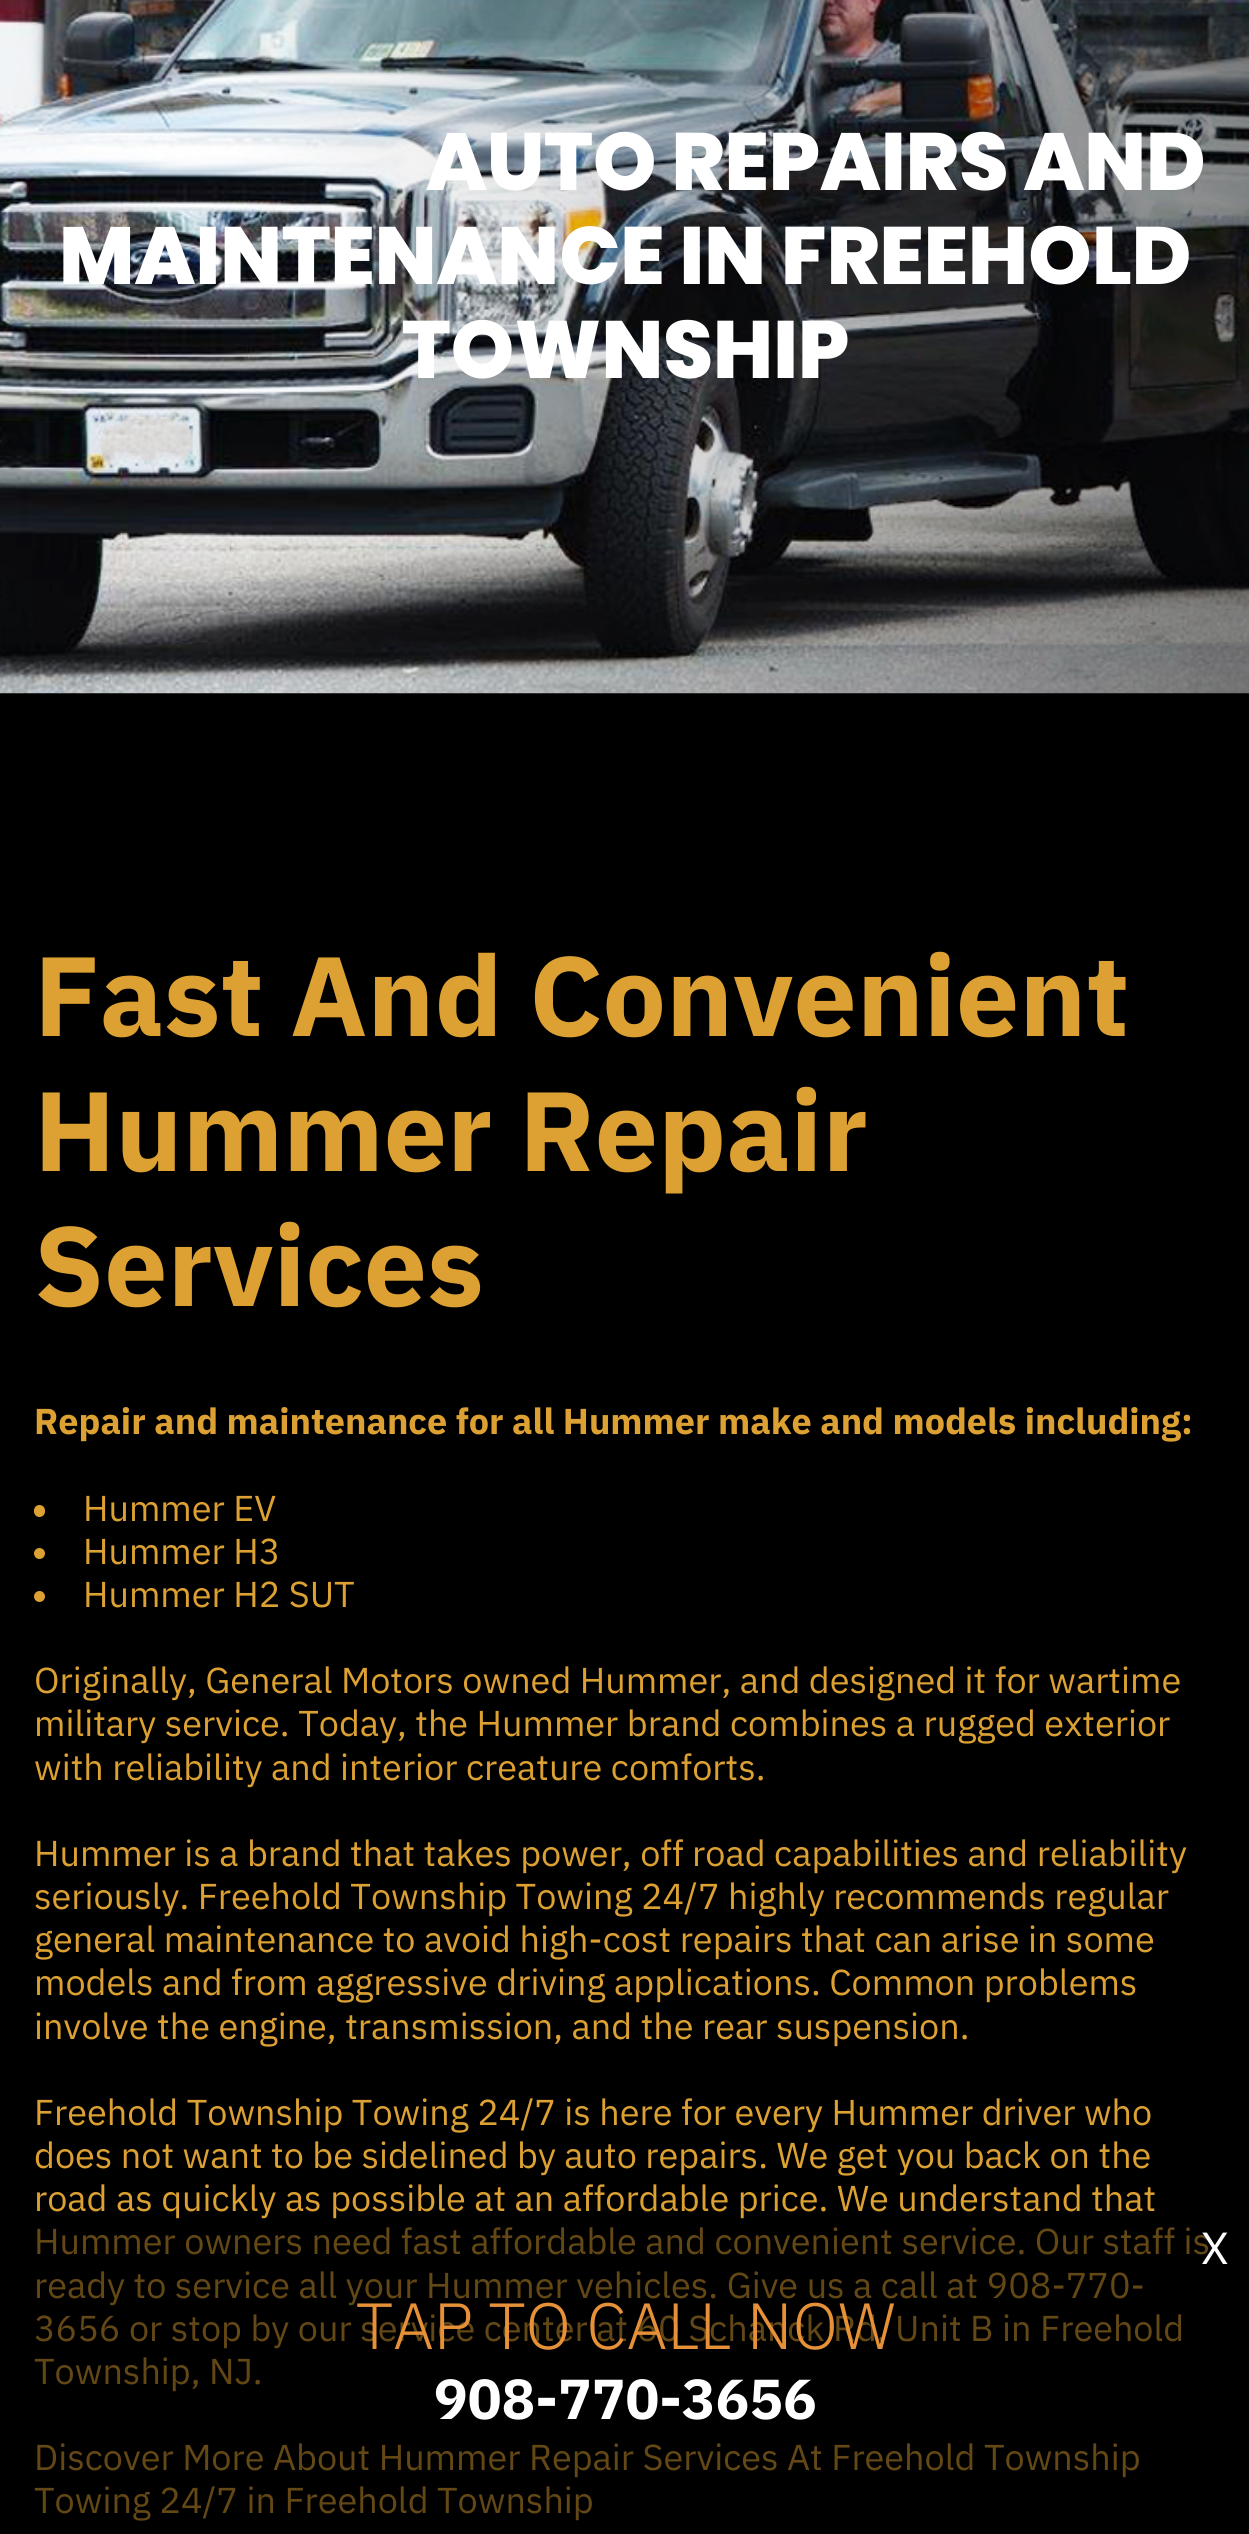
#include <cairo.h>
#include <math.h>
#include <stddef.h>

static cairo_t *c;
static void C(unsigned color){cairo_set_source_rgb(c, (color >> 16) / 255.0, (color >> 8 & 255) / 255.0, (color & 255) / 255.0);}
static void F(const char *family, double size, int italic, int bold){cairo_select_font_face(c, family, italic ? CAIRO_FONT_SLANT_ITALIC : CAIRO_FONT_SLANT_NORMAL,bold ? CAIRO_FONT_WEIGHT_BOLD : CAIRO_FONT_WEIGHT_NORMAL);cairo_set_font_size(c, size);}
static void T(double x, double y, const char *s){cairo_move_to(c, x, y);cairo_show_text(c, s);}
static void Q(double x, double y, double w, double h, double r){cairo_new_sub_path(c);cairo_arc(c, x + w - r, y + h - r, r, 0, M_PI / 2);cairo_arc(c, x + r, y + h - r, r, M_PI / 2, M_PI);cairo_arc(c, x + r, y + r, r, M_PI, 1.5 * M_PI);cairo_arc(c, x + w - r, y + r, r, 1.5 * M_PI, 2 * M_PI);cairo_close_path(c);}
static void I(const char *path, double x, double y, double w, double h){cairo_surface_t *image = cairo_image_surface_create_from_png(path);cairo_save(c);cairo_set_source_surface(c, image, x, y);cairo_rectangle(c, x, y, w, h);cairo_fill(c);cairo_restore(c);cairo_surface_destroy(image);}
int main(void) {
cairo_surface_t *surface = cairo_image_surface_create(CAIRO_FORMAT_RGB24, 1249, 2534);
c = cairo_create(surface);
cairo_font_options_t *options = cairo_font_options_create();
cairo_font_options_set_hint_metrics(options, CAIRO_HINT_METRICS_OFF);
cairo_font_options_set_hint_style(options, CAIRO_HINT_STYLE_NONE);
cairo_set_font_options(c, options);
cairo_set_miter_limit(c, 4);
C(0x000000);
cairo_paint(c);
I("1.png",0,0,1249,694);
F("Poppins ExtraBold",81,0,0);
C(0xffffff);
T(426,190,"AUTO REPAIRS AND");
T(59,284,"MAINTENANCE IN FREEHOLD");
T(402,378,"TOWNSHIP");
F("IBM Plex Sans",112.5,0,1);
C(0xdca132);
T(34,1036,"Fast And Convenient");
T(34,1171,"Hummer Repair");
T(34,1306,"Services");
F("IBM Plex Sans",36,0,1);
T(34,1434,"Repair and maintenance for all Hummer make and models including:");
Q(34,1505,11,12,5.5);
cairo_fill(c);
F("IBM Plex Sans",36,0,0);
T(83,1521,"Hummer EV");
cairo_new_path(c);
cairo_arc(c,39.5,1553.5,5.5,0,2 * M_PI);
cairo_fill(c);
T(83,1564,"Hummer H3");
cairo_new_path(c);
cairo_arc(c,39.5,1596.5,5.5,0,2 * M_PI);
cairo_fill(c);
T(83,1607,"Hummer H2 SUT");
T(34,1693,"Originally, General Motors owned Hummer, and designed it for wartime");
T(34,1736,"military service. Today, the Hummer brand combines a rugged exterior");
T(34,1780,"with reliability and interior creature comforts.");
T(34,1866,"Hummer is a brand that takes power, off road capabilities and reliability");
T(34,1909,"seriously. Freehold Township Towing 24/7 highly recommends regular");
T(34,1952,"general maintenance to avoid high-cost repairs that can arise in some");
T(34,1995,"models and from aggressive driving applications. Common problems");
T(34,2039,"involve the engine, transmission, and the rear suspension.");
T(34,2125,"Freehold Township Towing 24/7 is here for every Hummer driver who");
T(34,2168,"does not want to be sidelined by auto repairs. We get you back on the");
T(34,2211,"road as quickly as possible at an affordable price. We understand that");
C(0x634816);
T(34,2254,"Hummer owners need fast affordable and convenient service. Our staff is");
T(34,2298,"ready to service all your Hummer vehicles. Give us a call at 908-770-");
T(34,2341,"3656 or stop by our service center at 60 Schanck Rd, Unit B in Freehold");
T(34,2384,"Township, NJ.");
T(34,2470,"Discover More About Hummer Repair Services At Freehold Township");
T(34,2513,"Towing 24/7 in Freehold Township");
F("IBM Plex Sans",45,0,0);
C(0xffffff);
T(1201,2264,"X");
F("IBM Plex Sans Light",65.25,0,0);
C(0xe69138);
T(356,2349,"TAP TO CALL NOW");
F("IBM Plex Sans",56.25,0,1);
C(0xffffff);
T(434,2419,"908-770-3656");
cairo_surface_write_to_png(surface, "o.png");
cairo_font_options_destroy(options);
cairo_destroy(c);
cairo_surface_destroy(surface);
return 0;
}
